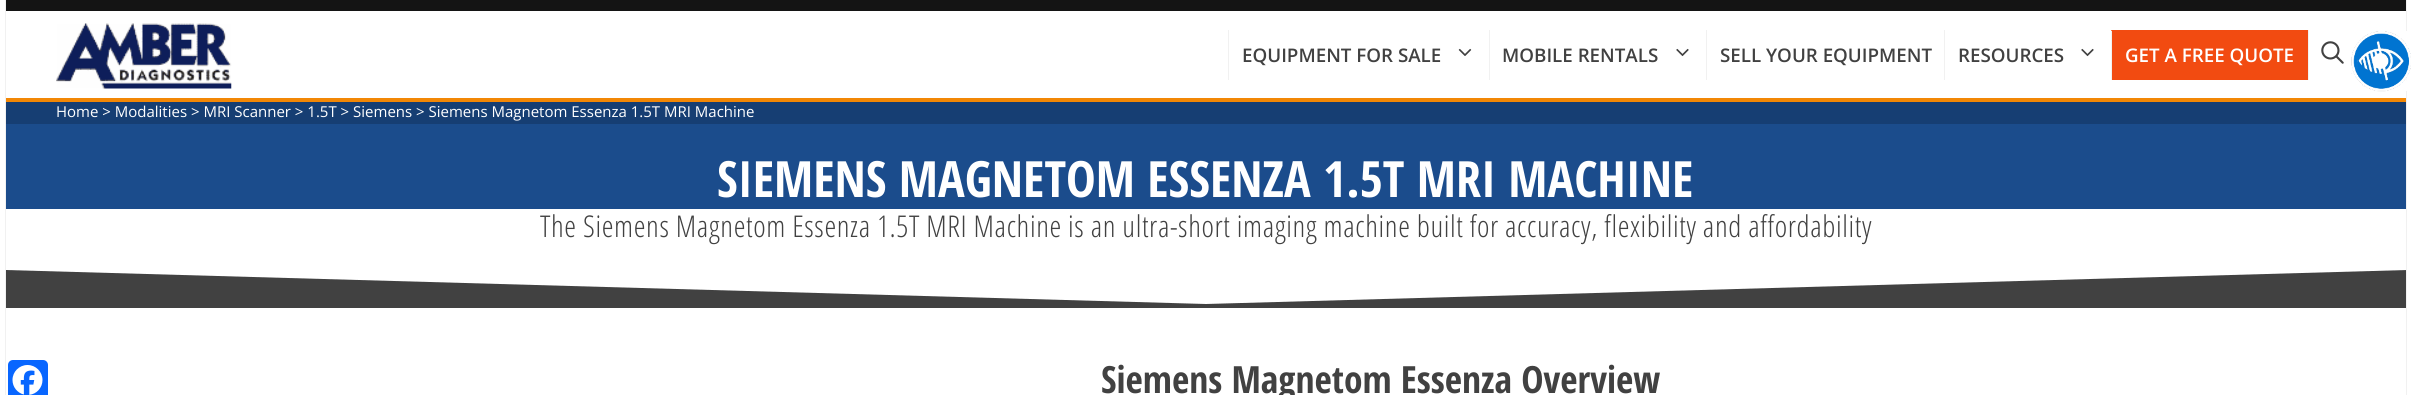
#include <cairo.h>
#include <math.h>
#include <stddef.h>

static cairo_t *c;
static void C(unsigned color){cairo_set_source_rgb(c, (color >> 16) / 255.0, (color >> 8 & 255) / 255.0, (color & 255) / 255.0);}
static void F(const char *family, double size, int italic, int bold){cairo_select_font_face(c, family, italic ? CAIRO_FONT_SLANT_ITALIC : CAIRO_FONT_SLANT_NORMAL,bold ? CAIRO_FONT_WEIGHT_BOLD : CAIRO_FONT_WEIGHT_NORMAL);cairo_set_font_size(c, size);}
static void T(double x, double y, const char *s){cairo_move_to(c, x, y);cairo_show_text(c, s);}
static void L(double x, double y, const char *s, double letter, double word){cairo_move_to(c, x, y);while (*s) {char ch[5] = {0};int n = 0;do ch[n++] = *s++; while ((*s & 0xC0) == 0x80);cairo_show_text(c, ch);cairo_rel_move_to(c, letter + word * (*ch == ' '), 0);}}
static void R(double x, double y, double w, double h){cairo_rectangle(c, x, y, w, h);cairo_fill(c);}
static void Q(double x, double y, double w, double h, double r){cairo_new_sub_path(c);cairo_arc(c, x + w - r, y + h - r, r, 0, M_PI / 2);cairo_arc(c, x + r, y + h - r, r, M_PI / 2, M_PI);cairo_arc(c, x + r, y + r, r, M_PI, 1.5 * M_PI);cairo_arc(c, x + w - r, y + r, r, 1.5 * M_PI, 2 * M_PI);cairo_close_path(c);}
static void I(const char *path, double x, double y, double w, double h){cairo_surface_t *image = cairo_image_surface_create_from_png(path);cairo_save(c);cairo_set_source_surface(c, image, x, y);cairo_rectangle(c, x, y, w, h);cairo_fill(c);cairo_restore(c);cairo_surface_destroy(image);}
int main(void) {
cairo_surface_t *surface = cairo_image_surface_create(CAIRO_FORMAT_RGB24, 2411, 395);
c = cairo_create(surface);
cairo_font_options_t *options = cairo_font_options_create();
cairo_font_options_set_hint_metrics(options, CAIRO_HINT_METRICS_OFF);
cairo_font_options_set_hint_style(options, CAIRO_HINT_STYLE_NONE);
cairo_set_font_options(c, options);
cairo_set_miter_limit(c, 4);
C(0xffffff);
cairo_paint(c);
C(0xf1f1f1);
R(2406,0,1,395);
R(5,0,1,395);
C(0x141414);
R(6,0,2400,11);
C(0xf28705);
R(6,98,2400,4);
I("1.png",56,23,176,66);
C(0xf1f1f1);
R(1228,30,1,50);
F("Open Sans SemiBold",18.75,0,0);
C(0x414141);
T(1242,62,"EQUIPMENT FOR SALE");
I("2.png",1458,48,14,8);
C(0xf1f1f1);
R(1489,30,1,50);
C(0x414141);
T(1502,62,"MOBILE RENTALS");
I("3.png",1676,48,13,9);
C(0xf1f1f1);
R(1706,30,1,50);
C(0x414141);
T(1720,62,"SELL YOUR EQUIPMENT");
C(0xf1f1f1);
R(1944,30,1,50);
C(0x414141);
T(1958,62,"RESOURCES");
I("3.png",2081,48,13,9);
C(0xf24b11);
Q(2111,30,197,50,1);
cairo_fill(c);
C(0xf1f1f1);
R(2111,31,1,49);
C(0xf24b11);
R(2307,30,1,50);
C(0xffffff);
T(2125,62,"GET A FREE QUOTE");
C(0xf1f1f1);
R(2308,30,1,50);
I("4.png",2321,41,23,23);
C(0xffffff);
R(2406,31,1,60);
I("5.png",2351,31,60,61);
C(0x163e73);
R(6,102,2400,22);
F("Open Sans",15,0,0);
C(0xffffff);
T(56,117,"Home > Modalities > MRI Scanner > 1.5T > Siemens > Siemens Magnetom Essenza 1.5T MRI Machine");
C(0x0866ff);
Q(8,360,40,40,5);
cairo_fill(c);
I("6.png",12,365,31,30);
C(0x1b4c8c);
R(6,124,2400,85);
F("Open Sans Condensed",50,0,1);
C(0xffffff);
T(717,197,"SIEMENS MAGNETOM ESSENZA 1.5T MRI MACHINE");
F("Open Sans Condensed Light",30,0,0);
C(0x414141);
L(540,237,"The Siemens Magnetom Essenza 1.5T MRI Machine is an ultra-short imaging machine built for accuracy, flexibility and affordability",.6,0);
cairo_save(c);
cairo_rectangle(c,6,270,2400,38);
cairo_clip(c);
cairo_new_path(c);
cairo_move_to(c,2407,308);
cairo_line_to(c,5,308);
cairo_line_to(c,5,270);
cairo_line_to(c,1206,304);
cairo_line_to(c,2407,270);
cairo_close_path(c);
cairo_fill(c);
cairo_restore(c);
F("Open Sans Condensed",37.5,0,1);
T(1101,393,"Siemens Magnetom Essenza Overview");
cairo_surface_write_to_png(surface, "o.png");
cairo_font_options_destroy(options);
cairo_destroy(c);
cairo_surface_destroy(surface);
return 0;
}
